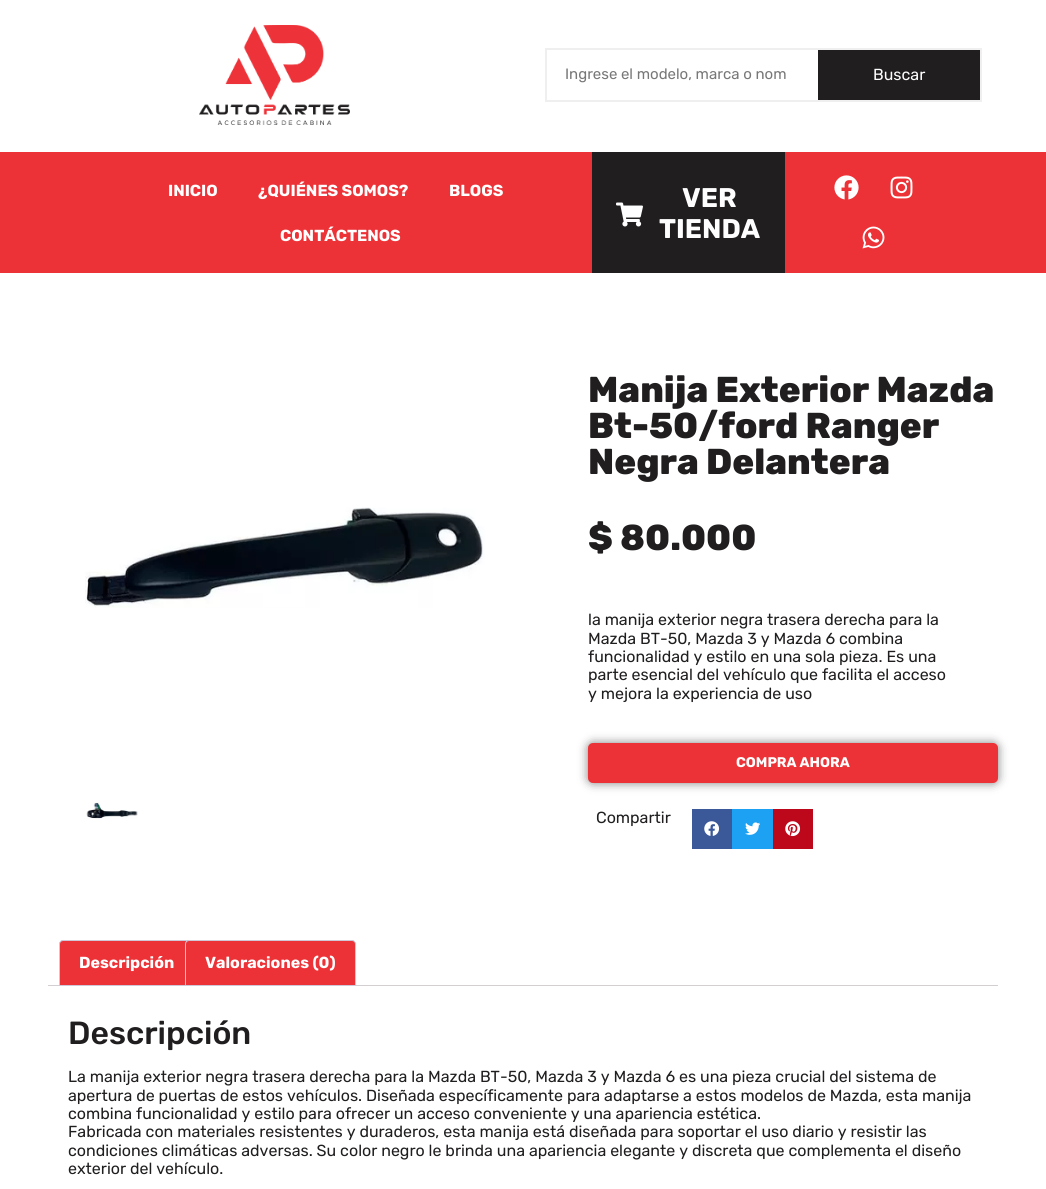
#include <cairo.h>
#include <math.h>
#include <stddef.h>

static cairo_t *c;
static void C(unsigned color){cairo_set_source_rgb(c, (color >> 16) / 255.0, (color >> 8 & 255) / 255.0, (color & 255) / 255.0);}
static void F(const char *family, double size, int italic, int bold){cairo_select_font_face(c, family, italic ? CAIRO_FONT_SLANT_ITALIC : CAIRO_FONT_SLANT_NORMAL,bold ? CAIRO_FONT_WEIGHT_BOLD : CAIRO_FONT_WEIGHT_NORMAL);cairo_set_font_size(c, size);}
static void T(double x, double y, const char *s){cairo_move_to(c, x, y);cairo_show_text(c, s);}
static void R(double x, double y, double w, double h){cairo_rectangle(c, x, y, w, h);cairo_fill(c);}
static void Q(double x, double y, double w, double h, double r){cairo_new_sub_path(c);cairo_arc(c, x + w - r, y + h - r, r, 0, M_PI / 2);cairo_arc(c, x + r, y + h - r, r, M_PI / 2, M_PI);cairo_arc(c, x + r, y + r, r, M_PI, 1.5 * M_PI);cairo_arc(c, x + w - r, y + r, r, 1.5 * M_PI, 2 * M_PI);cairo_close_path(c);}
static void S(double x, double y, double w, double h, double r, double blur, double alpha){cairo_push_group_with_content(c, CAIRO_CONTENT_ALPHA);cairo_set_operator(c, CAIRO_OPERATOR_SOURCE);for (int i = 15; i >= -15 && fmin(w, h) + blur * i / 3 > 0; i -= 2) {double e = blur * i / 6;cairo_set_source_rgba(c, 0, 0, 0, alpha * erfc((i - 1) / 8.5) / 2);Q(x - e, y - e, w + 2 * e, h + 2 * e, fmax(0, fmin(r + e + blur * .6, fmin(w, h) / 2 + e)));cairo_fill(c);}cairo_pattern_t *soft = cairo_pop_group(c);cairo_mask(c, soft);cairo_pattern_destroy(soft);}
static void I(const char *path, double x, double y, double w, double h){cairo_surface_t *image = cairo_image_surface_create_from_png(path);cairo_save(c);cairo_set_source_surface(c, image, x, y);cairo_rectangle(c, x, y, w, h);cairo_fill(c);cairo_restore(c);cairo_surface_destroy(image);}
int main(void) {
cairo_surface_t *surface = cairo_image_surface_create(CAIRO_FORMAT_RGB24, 1046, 1189);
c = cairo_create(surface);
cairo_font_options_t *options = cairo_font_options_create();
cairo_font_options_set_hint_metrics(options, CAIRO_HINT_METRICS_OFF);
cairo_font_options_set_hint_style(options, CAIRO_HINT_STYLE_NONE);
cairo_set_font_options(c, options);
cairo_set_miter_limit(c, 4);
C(0xffffff);
cairo_paint(c);
I("1.png",199,25,151,100);
cairo_rectangle(c,546,49,435,52);
C(0xefefef);
cairo_stroke(c);
F("Rubik",15,0,0);
C(0x797878);
T(565,79,"Ingrese el modelo, marca o nom");
C(0x201e1e);
R(818,50,162,50);
F("Rubik",16,0,0);
C(0xfefefe);
T(873,80,"Buscar");
C(0xed3237);
R(0,152,1046,121);
F("Rubik",16,0,1);
C(0xfefefe);
T(168,196,"INICIO");
T(258,196,"¿QUIÉNES SOMOS?");
T(449,196,"BLOGS");
T(280,241,"CONTÁCTENOS");
C(0x201e1e);
R(592,152,193,121);
I("2.png",616,202,27,25);
F("Rubik",27,0,1);
C(0xfefefe);
T(682,207,"VER");
T(659,238,"TIENDA");
I("3.png",834,175,25,25);
I("4.png",890,176,23,23);
I("5.png",862,226,23,23);
I("6.png",85,507,400,101);
I("7.png",86,802,52,17);
F("Rubik ExtraBold",36,0,0);
C(0x201e1e);
T(588,402,"Manija Exterior Mazda");
T(588,438,"Bt-50/ford Ranger");
T(588,474,"Negra Delantera");
T(588,550,"$ 80.000");
F("Rubik",16,0,0);
T(588,625,"la manija exterior negra trasera derecha para la");
T(588,644,"Mazda BT-50, Mazda 3 y Mazda 6 combina");
T(588,662,"funcionalidad y estilo en una sola pieza. Es una");
T(588,680,"parte esencial del vehículo que facilita el acceso");
T(588,699,"y mejora la experiencia de uso");
C(0x000000);
S(588,743,410,40,5,5,.5);
C(0xed3237);
Q(588,743,410,40,5);
cairo_fill(c);
F("Rubik",14,0,1);
C(0xfefefe);
T(736,767,"COMPRA AHORA");
F("Rubik",16,0,0);
C(0x201e1e);
T(596,823,"Compartir");
C(0x3b5998);
R(692,809,40,40);
I("8.png",704,821,16,15);
C(0x1da1f2);
R(732,809,41,40);
I("9.png",745,822,15,13);
C(0xbd081c);
R(773,809,40,40);
I("10.png",785,821,16,16);
C(0xd3ced2);
R(48,985,950,1);
C(0xed3237);
cairo_new_path(c);
cairo_move_to(c,63,940.5);
cairo_line_to(c,191,940.5);
cairo_curve_to(c,193,940.5,194.5,942,194.5,944);
cairo_line_to(c,194.5,985.5);
cairo_line_to(c,59.5,985.5);
cairo_line_to(c,59.5,944);
cairo_curve_to(c,59.5,942,61,940.5,63,940.5);
cairo_close_path(c);
cairo_fill_preserve(c);
C(0xcfc8d8);
cairo_set_line_width(c,1);
cairo_stroke(c);
F("Rubik",16,0,1);
C(0xfefefe);
T(79,968,"Descripción");
C(0xed3237);
cairo_new_path(c);
cairo_move_to(c,189,940.5);
cairo_line_to(c,352,940.5);
cairo_curve_to(c,354,940.5,355.5,942,355.5,944);
cairo_line_to(c,355.5,985.5);
cairo_line_to(c,185.5,985.5);
cairo_line_to(c,185.5,944);
cairo_curve_to(c,185.5,942,187,940.5,189,940.5);
cairo_close_path(c);
cairo_fill_preserve(c);
C(0xcfc8d8);
cairo_stroke(c);
C(0xfefefe);
T(205,968,"Valoraciones (0)");
F("Rubik Medium",32,0,0);
C(0x201e1e);
T(68,1044,"Descripción");
F("Rubik",16,0,0);
T(68,1082,"La manija exterior negra trasera derecha para la Mazda BT-50, Mazda 3 y Mazda 6 es una pieza crucial del sistema de");
T(68,1101,"apertura de puertas de estos vehículos. Diseñada específicamente para adaptarse a estos modelos de Mazda, esta manija");
T(68,1119,"combina funcionalidad y estilo para ofrecer un acceso conveniente y una apariencia estética.");
T(68,1137,"Fabricada con materiales resistentes y duraderos, esta manija está diseñada para soportar el uso diario y resistir las");
T(68,1156,"condiciones climáticas adversas. Su color negro le brinda una apariencia elegante y discreta que complementa el diseño");
T(68,1174,"exterior del vehículo.");
cairo_surface_write_to_png(surface, "o.png");
cairo_font_options_destroy(options);
cairo_destroy(c);
cairo_surface_destroy(surface);
return 0;
}
